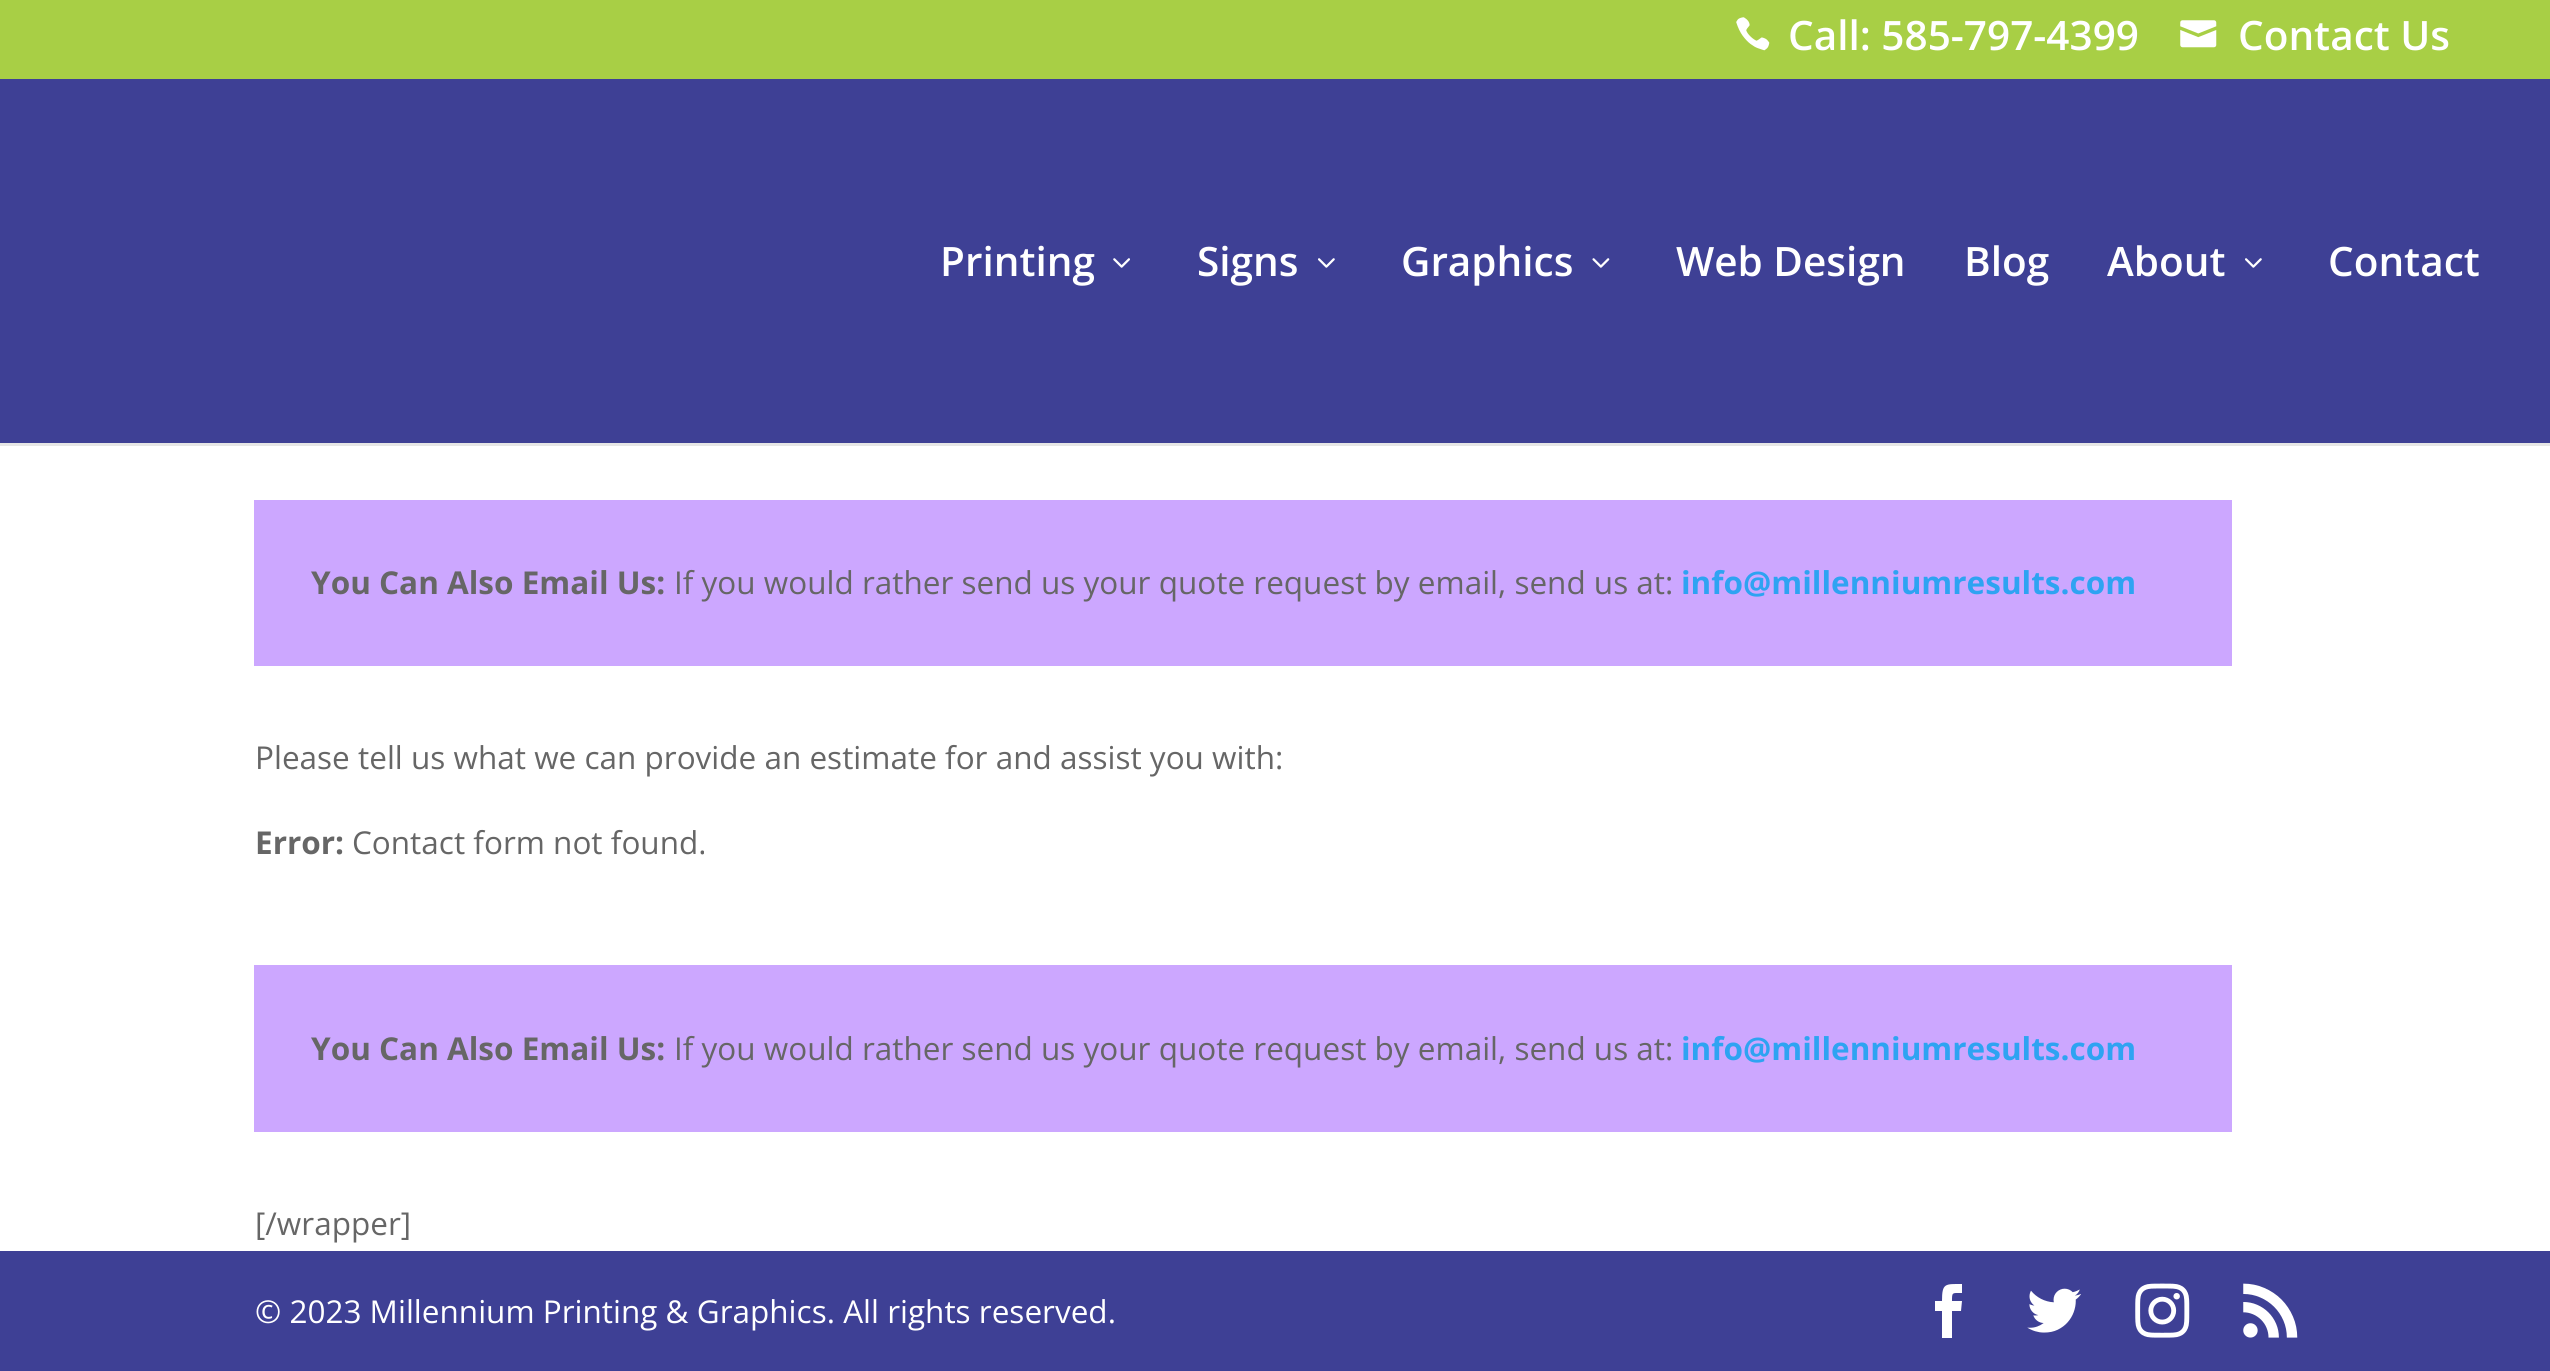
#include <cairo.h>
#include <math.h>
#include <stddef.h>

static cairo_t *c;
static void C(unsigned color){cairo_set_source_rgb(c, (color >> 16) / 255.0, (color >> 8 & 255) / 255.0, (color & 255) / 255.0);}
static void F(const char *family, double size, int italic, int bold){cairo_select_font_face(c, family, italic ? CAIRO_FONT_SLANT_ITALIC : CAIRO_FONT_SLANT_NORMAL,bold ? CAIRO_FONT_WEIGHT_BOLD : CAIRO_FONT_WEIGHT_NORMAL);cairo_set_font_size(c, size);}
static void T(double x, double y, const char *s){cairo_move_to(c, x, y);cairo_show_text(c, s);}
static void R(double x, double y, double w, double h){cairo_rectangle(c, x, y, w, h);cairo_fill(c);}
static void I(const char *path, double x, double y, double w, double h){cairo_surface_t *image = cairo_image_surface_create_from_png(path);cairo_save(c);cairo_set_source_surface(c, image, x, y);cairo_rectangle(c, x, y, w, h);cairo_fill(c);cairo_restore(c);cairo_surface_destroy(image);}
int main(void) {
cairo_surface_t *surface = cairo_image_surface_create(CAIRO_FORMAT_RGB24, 2550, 1371);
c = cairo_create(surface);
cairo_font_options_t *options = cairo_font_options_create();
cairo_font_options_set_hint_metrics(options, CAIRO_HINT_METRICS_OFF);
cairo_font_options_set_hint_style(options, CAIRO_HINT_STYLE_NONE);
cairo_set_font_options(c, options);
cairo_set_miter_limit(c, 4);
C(0xffffff);
cairo_paint(c);
C(0xa8cf45);
R(0,0,2550,79);
I("1.png",1736,17,34,34);
F("Open Sans SemiBold",40.5,0,0);
C(0xffffff);
T(1788,50,"Call: 585-797-4399");
I("2.png",2180,20,37,28);
T(2238,50,"Contact Us");
C(0xe6e6e6);
cairo_new_path(c);
cairo_move_to(c,0,443);
cairo_line_to(c,0,446);
cairo_line_to(c,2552,446);
cairo_line_to(c,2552,81);
cairo_line_to(c,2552,443);
cairo_close_path(c);
cairo_fill(c);
C(0x3e4095);
R(0,79,2550,364);
C(0xffffff);
T(940,276,"Printing");
I("3.png",1113,258,17,10);
T(1197,276,"Signs");
I("4.png",1318,258,17,10);
T(1401,276,"Graphics");
I("5.png",1592,258,18,10);
T(1676,276,"Web Design");
T(1964,276,"Blog");
T(2107,276,"About");
I("4.png",2245,258,17,10);
T(2328,276,"Contact");
C(0xcca7ff);
R(254,500,1978,166);
F("Open Sans",31.5,0,1);
C(0x666666);
T(311,594,"You Can Also Email Us:");
F("Open Sans",31.5,0,0);
T(674,594,"If you would rather send us your quote request by email, send us at:");
F("Open Sans",31.5,0,1);
C(0x2ea3f2);
T(1681,594,"info@millenniumresults.com");
F("Open Sans",31.5,0,0);
C(0x666666);
T(255,769,"Please tell us what we can provide an estimate for and assist you with:");
F("Open Sans",31.5,0,1);
T(255,854,"Error:");
F("Open Sans",31.5,0,0);
T(352,854,"Contact form not found.");
C(0xcca7ff);
R(254,965,1978,167);
F("Open Sans",31.5,0,1);
C(0x666666);
T(311,1060,"You Can Also Email Us:");
F("Open Sans",31.5,0,0);
T(674,1060,"If you would rather send us your quote request by email, send us at:");
F("Open Sans",31.5,0,1);
C(0x2ea3f2);
T(1681,1060,"info@millenniumresults.com");
F("Open Sans",31.5,0,0);
C(0x666666);
T(255,1235,"[/wrapper]");
C(0x3e4095);
R(0,1251,2550,120);
C(0xffffff);
T(255,1323,"© 2023 Millennium Printing & Graphics. All rights reserved.");
cairo_new_path(c);
cairo_move_to(c,1942,1338);
cairo_line_to(c,1952,1338);
cairo_line_to(c,1952,1311);
cairo_line_to(c,1961,1311);
cairo_line_to(c,1962,1301);
cairo_line_to(c,1952,1301);
cairo_curve_to(c,1952,1292,1952,1293,1962,1293);
cairo_line_to(c,1962,1284);
cairo_curve_to(c,1945,1284,1942,1283,1942,1301);
cairo_line_to(c,1935,1301);
cairo_line_to(c,1935,1311);
cairo_line_to(c,1942,1311);
cairo_close_path(c);
cairo_fill(c);
I("6.png",2027,1288,54,45);
I("7.png",2135,1283,55,55);
I("8.png",2243,1283,55,55);
cairo_surface_write_to_png(surface, "o.png");
cairo_font_options_destroy(options);
cairo_destroy(c);
cairo_surface_destroy(surface);
return 0;
}
